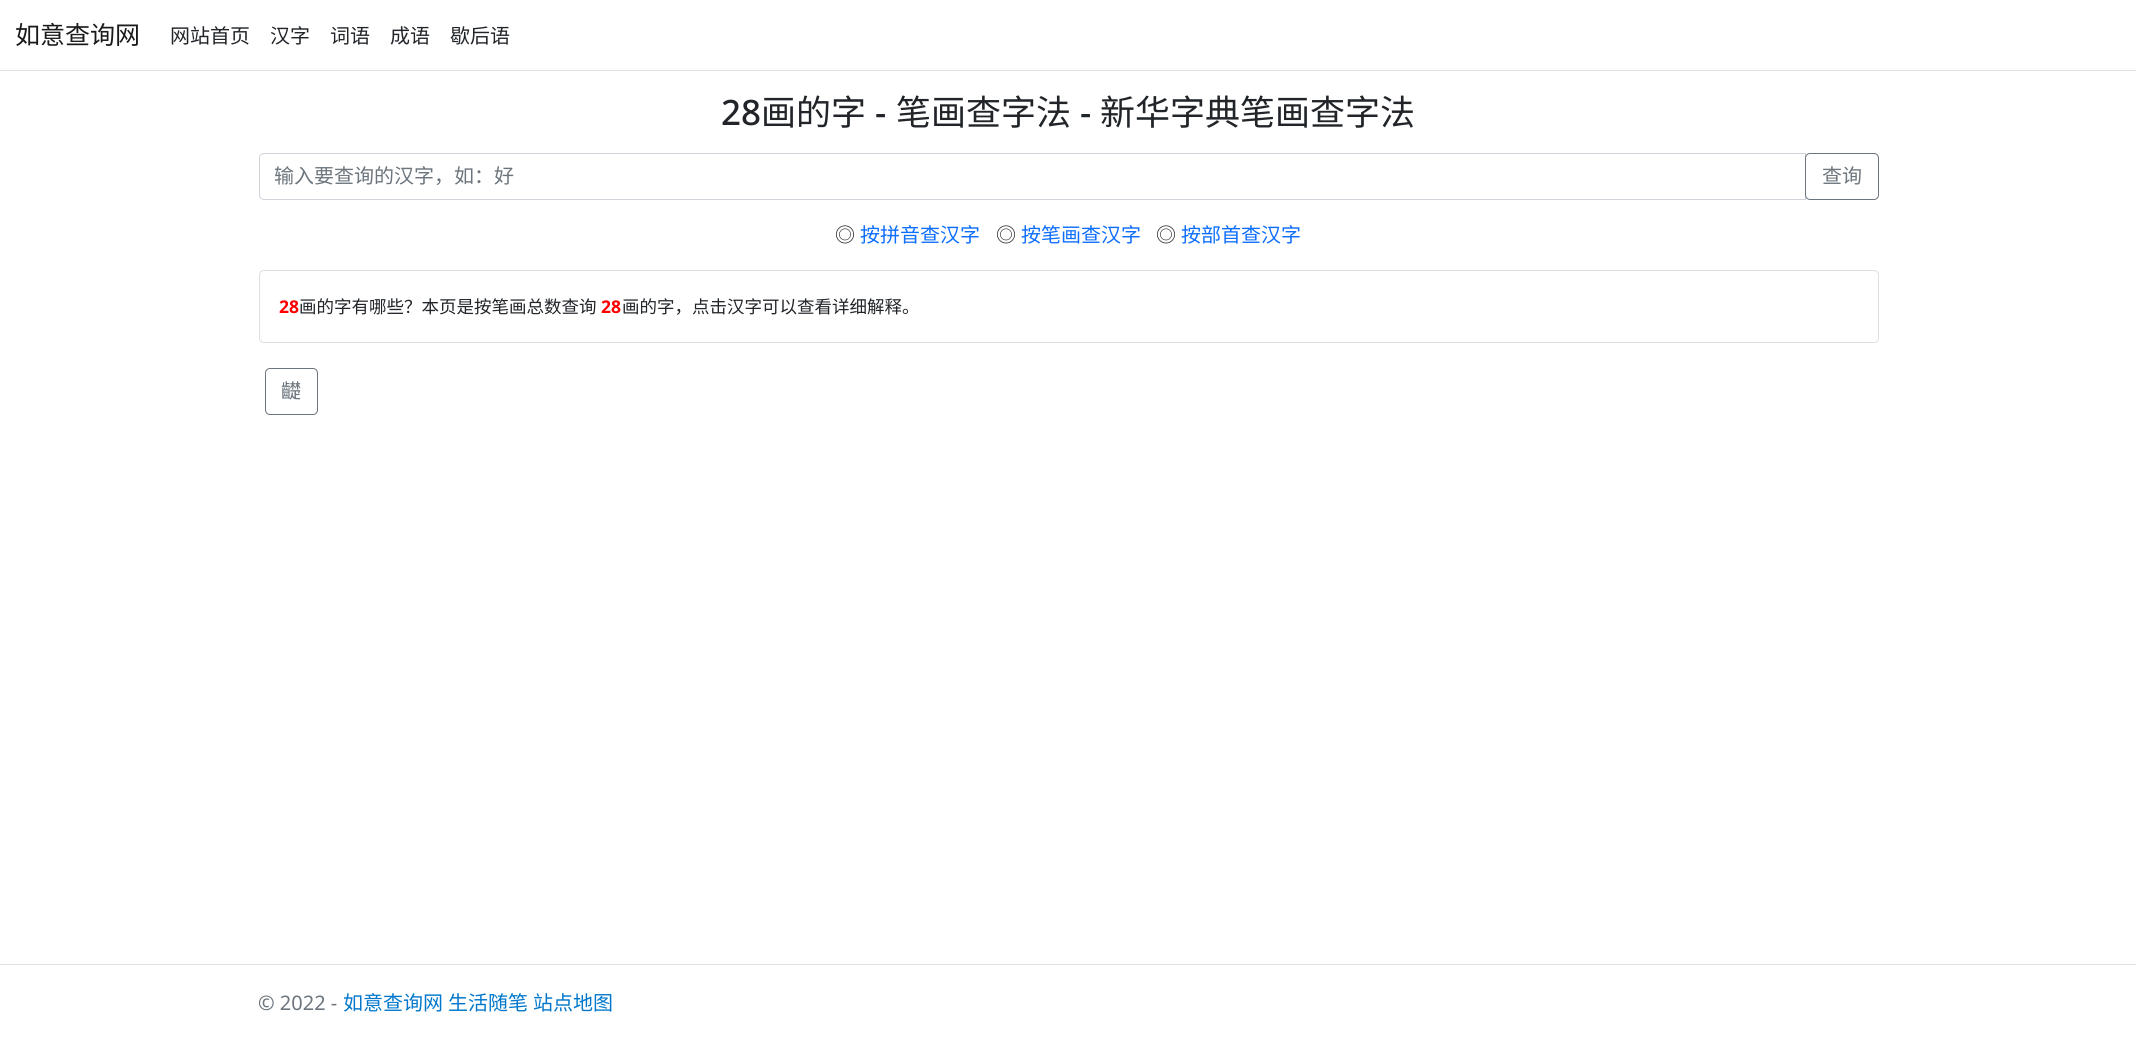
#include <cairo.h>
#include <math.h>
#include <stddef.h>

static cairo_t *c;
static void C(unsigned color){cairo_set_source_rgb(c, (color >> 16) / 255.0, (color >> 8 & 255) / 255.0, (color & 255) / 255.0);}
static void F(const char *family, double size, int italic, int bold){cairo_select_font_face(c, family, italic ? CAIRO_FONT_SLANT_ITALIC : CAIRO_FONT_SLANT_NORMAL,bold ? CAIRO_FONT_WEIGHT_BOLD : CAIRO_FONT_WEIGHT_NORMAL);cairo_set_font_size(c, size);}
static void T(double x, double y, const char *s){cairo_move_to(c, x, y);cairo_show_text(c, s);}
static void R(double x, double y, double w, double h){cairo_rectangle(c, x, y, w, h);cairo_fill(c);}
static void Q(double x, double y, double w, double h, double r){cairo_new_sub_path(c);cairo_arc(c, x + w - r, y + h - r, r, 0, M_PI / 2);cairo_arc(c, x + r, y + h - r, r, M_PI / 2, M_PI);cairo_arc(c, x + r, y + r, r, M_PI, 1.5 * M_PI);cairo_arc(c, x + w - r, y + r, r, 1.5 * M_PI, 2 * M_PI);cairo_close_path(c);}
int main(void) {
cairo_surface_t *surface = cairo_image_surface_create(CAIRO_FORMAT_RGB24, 2136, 1040);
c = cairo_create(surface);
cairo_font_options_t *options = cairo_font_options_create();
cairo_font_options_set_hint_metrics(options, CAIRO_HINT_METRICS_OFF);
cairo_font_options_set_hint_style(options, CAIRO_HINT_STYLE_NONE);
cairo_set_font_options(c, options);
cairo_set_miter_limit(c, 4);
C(0xffffff);
cairo_paint(c);
C(0xdee2e6);
R(0,70,2136,1);
F("Noto Sans CJK SC",25,0,0);
C(0x1a1a1a);
T(15,44,"如意查询网");
F("Noto Sans CJK SC",20,0,0);
C(0x212529);
T(170,43,"网站首页");
T(270,43,"汉字");
T(330,43,"词语");
T(390,43,"成语");
T(450,43,"歇后语");
F("Noto Sans Medium",35,0,0);
T(721,125,"28");
F("Noto Sans CJK SC",35,0,0);
T(761,125,"画的字");
F("Noto Sans Medium",35,0,0);
T(875,125,"-");
F("Noto Sans CJK SC",35,0,0);
T(896,125,"笔画查字法");
F("Noto Sans Medium",35,0,0);
T(1080,125,"-");
F("Noto Sans CJK SC",35,0,0);
T(1100,125,"新华字典笔画查字法");
cairo_new_path(c);
cairo_move_to(c,264,153.5);
cairo_line_to(c,1805.5,153.5);
cairo_line_to(c,1805.5,199.5);
cairo_line_to(c,264,199.5);
cairo_curve_to(c,261.5,199.5,259.5,197.5,259.5,195);
cairo_line_to(c,259.5,158);
cairo_curve_to(c,259.5,155.5,261.5,153.5,264,153.5);
cairo_close_path(c);
C(0xced4da);
cairo_set_line_width(c,1);
cairo_stroke(c);
F("Noto Sans CJK SC",20,0,0);
C(0x6c757d);
T(274,183,"输入要查询的汉字，如：好");
Q(1805.5,153.5,73,46,4.5);
cairo_stroke(c);
T(1822,183,"查询");
C(0x212529);
T(835,242,"◎");
C(0x0d6efd);
T(860,242,"按拼音查汉字");
C(0x212529);
T(996,242,"◎");
C(0x0d6efd);
T(1021,242,"按笔画查汉字");
C(0x212529);
T(1156,242,"◎");
C(0x0d6efd);
T(1181,242,"按部首查汉字");
Q(259.5,270.5,1619,72,4.5);
C(0xdfdfdf);
cairo_stroke(c);
F("Noto Sans",17.5,0,1);
C(0xff0000);
T(279,313,"28");
F("Noto Sans CJK SC",17.5,0,0);
C(0x212529);
T(299,313,"画的字有哪些？本页是按笔画总数查询");
F("Noto Sans",17.5,0,1);
C(0xff0000);
T(601,313,"28");
F("Noto Sans CJK SC",17.5,0,0);
C(0x212529);
T(622,313,"画的字，点击汉字可以查看详细解释。");
Q(265.5,368.5,52,46,4.5);
C(0x6c757d);
cairo_stroke(c);
F("Noto Sans CJK SC",20,0,0);
T(281,398,"齼");
C(0xdee2e6);
R(0,964,2136,1);
F("Noto Sans",20,0,0);
C(0x6c757d);
T(258,1010,"© 2022 -");
F("Noto Sans CJK SC",20,0,0);
C(0x0077cc);
T(343,1010,"如意查询网");
T(448,1010,"生活随笔");
T(533,1010,"站点地图");
cairo_surface_write_to_png(surface, "o.png");
cairo_font_options_destroy(options);
cairo_destroy(c);
cairo_surface_destroy(surface);
return 0;
}
